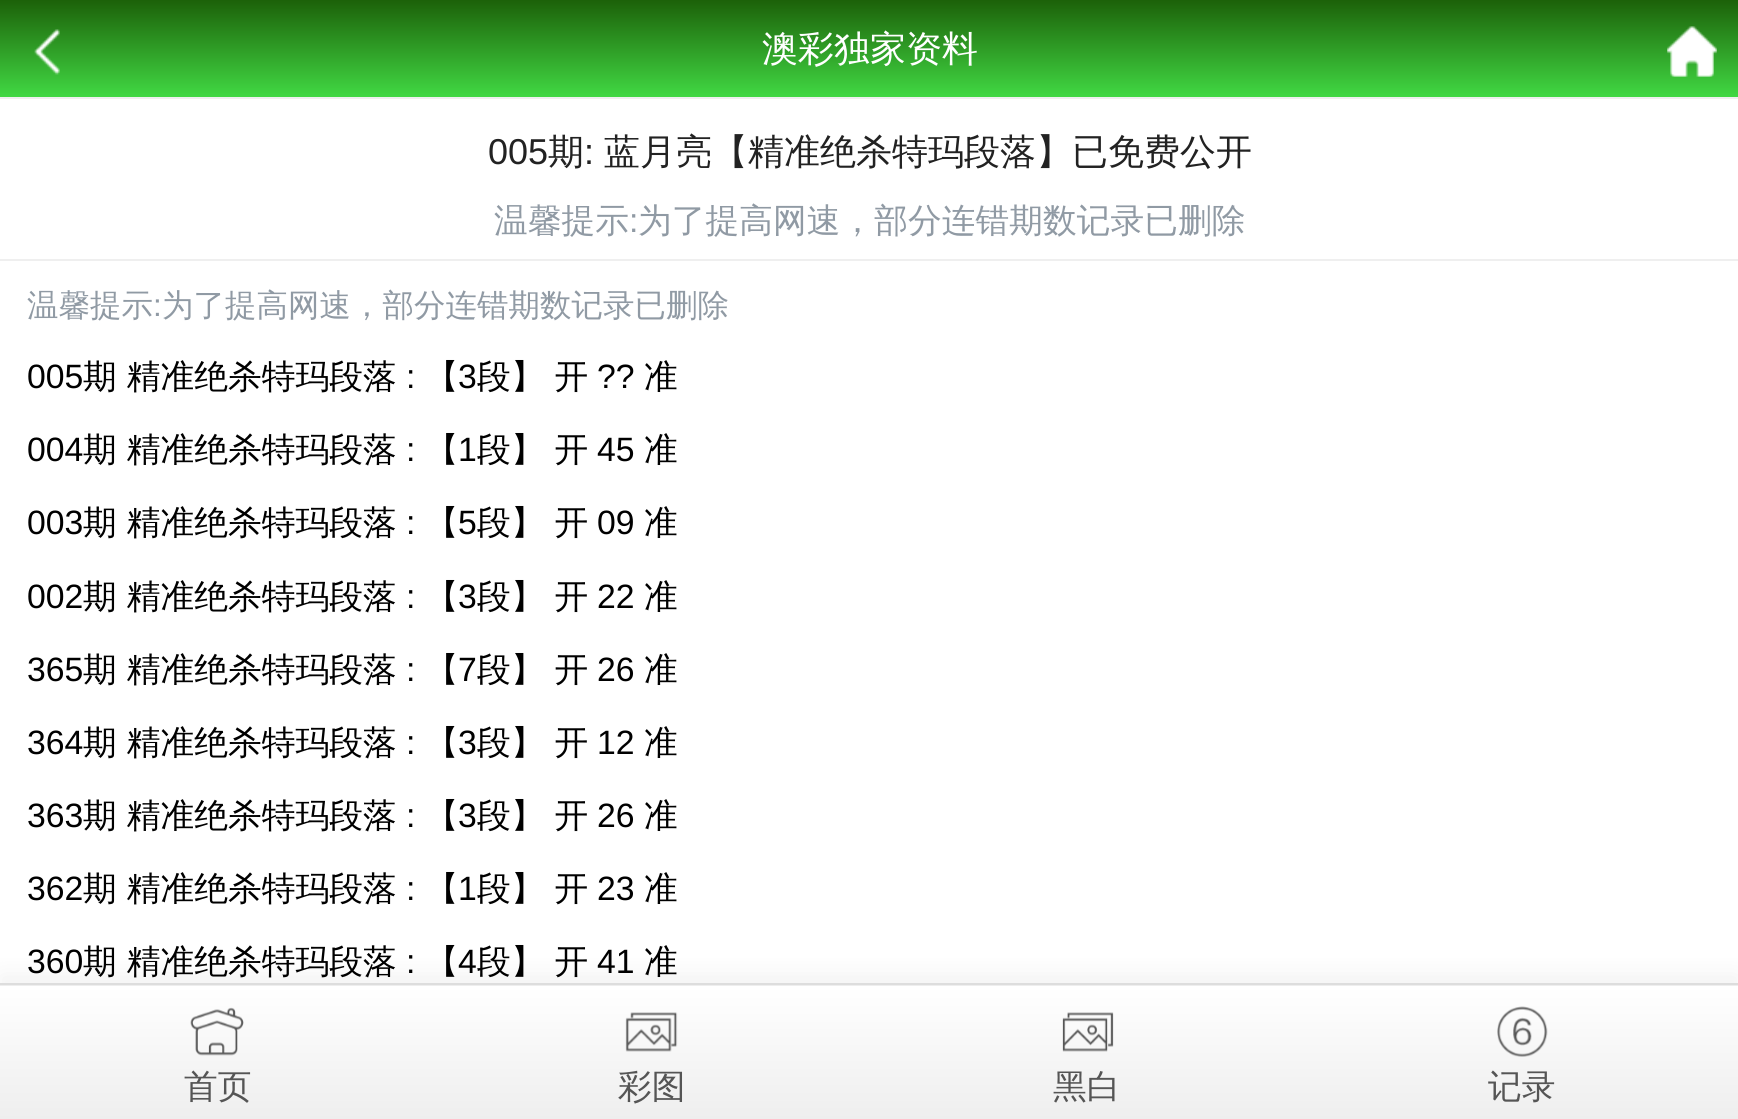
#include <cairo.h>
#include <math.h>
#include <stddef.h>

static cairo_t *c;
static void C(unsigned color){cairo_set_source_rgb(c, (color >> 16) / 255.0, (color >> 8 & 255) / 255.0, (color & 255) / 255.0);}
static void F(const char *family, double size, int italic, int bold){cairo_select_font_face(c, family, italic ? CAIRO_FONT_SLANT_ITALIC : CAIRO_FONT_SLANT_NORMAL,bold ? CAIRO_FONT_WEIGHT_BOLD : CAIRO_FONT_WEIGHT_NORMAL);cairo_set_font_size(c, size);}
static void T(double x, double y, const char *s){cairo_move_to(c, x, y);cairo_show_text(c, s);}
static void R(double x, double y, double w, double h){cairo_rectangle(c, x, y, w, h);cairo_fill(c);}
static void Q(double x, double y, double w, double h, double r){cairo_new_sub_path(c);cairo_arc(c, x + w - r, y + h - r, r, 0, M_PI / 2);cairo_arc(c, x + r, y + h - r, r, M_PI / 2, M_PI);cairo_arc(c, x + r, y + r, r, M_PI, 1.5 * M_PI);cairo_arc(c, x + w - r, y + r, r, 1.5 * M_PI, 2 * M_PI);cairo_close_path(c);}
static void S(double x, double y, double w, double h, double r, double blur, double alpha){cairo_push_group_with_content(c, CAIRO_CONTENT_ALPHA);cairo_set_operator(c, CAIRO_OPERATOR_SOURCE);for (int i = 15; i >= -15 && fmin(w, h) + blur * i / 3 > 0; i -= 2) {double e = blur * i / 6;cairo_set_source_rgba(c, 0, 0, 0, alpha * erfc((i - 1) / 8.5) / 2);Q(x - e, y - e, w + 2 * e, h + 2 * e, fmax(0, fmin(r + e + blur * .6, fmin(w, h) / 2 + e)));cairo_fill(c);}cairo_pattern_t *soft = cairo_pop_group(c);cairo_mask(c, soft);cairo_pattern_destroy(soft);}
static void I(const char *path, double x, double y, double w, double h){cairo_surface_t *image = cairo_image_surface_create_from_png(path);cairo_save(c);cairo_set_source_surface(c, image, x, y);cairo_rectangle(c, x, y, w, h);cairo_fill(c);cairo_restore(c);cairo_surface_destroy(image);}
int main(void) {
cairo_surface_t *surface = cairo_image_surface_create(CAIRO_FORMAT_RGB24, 1738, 1119);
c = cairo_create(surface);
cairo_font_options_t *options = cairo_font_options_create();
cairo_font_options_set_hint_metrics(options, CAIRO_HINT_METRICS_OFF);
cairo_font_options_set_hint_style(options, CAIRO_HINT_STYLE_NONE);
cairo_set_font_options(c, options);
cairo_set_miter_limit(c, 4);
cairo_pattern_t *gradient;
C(0xffffff);
cairo_paint(c);
gradient = cairo_pattern_create_linear(870,97,870,0);
cairo_pattern_add_color_stop_rgba(gradient,0,0.255,0.847,0.263,1);
cairo_pattern_add_color_stop_rgba(gradient,1,0.11,0.38,0.035,1);
cairo_set_source(c,gradient);
cairo_pattern_destroy(gradient);
R(0,0,1738,97);
C(0xefefef);
R(0,97,1738,2);
I("1.png",34,29,26,46);
F("WenQuanYi Zen Hei Medium",36,0,0);
C(0xffffff);
T(762,61,"澳彩独家资料");
I("2.png",1667,26,50,51);
C(0xefefef);
R(0,259,1738,2);
F("Liberation Sans",36,0,0);
C(0x222222);
T(488,164,"005");
F("WenQuanYi Zen Hei Medium",36,0,0);
T(548,164,"期");
F("Liberation Sans",36,0,0);
T(584,164,":");
F("WenQuanYi Zen Hei Medium",36,0,0);
T(604,164,"蓝月亮【精准绝杀特玛段落】已免费公开");
F("WenQuanYi Zen Hei Medium",33.75,0,0);
C(0x909aa4);
T(494,232,"温馨提示");
F("Liberation Sans",33.75,0,0);
T(629,232,":");
F("WenQuanYi Zen Hei Medium",33.75,0,0);
T(638,232,"为了提高网速，部分连错期数记录已删除");
F("WenQuanYi Zen Hei Medium",31.5,0,0);
T(27,316,"温馨提示");
F("Liberation Sans",31.5,0,0);
T(153,316,":");
F("WenQuanYi Zen Hei Medium",31.5,0,0);
T(162,316,"为了提高网速，部分连错期数记录已删除");
F("Liberation Sans",33.75,0,0);
C(0x000000);
T(27,388,"005");
F("WenQuanYi Zen Hei Medium",33.75,0,0);
T(83,388,"期 精准绝杀特玛段落");
F("Liberation Sans",33.75,0,0);
T(406,388,":");
F("WenQuanYi Zen Hei Medium",33.75,0,0);
T(425,388,"【");
F("Liberation Sans",33.75,0,0);
T(458,388,"3");
F("WenQuanYi Zen Hei Medium",33.75,0,0);
T(477,388,"段】 开");
F("Liberation Sans",33.75,0,0);
T(597,388,"?\077");
F("WenQuanYi Zen Hei Medium",33.75,0,0);
T(644,388,"准");
F("Liberation Sans",33.75,0,0);
T(27,461,"004");
F("WenQuanYi Zen Hei Medium",33.75,0,0);
T(83,461,"期 精准绝杀特玛段落");
F("Liberation Sans",33.75,0,0);
T(406,461,":");
F("WenQuanYi Zen Hei Medium",33.75,0,0);
T(425,461,"【");
F("Liberation Sans",33.75,0,0);
T(458,461,"1");
F("WenQuanYi Zen Hei Medium",33.75,0,0);
T(477,461,"段】 开");
F("Liberation Sans",33.75,0,0);
T(597,461,"45");
F("WenQuanYi Zen Hei Medium",33.75,0,0);
T(644,461,"准");
F("Liberation Sans",33.75,0,0);
T(27,534,"003");
F("WenQuanYi Zen Hei Medium",33.75,0,0);
T(83,534,"期 精准绝杀特玛段落");
F("Liberation Sans",33.75,0,0);
T(406,534,":");
F("WenQuanYi Zen Hei Medium",33.75,0,0);
T(425,534,"【");
F("Liberation Sans",33.75,0,0);
T(458,534,"5");
F("WenQuanYi Zen Hei Medium",33.75,0,0);
T(477,534,"段】 开");
F("Liberation Sans",33.75,0,0);
T(597,534,"09");
F("WenQuanYi Zen Hei Medium",33.75,0,0);
T(644,534,"准");
F("Liberation Sans",33.75,0,0);
T(27,608,"002");
F("WenQuanYi Zen Hei Medium",33.75,0,0);
T(83,608,"期 精准绝杀特玛段落");
F("Liberation Sans",33.75,0,0);
T(406,608,":");
F("WenQuanYi Zen Hei Medium",33.75,0,0);
T(425,608,"【");
F("Liberation Sans",33.75,0,0);
T(458,608,"3");
F("WenQuanYi Zen Hei Medium",33.75,0,0);
T(477,608,"段】 开");
F("Liberation Sans",33.75,0,0);
T(597,608,"22");
F("WenQuanYi Zen Hei Medium",33.75,0,0);
T(644,608,"准");
F("Liberation Sans",33.75,0,0);
T(27,681,"365");
F("WenQuanYi Zen Hei Medium",33.75,0,0);
T(83,681,"期 精准绝杀特玛段落");
F("Liberation Sans",33.75,0,0);
T(406,681,":");
F("WenQuanYi Zen Hei Medium",33.75,0,0);
T(425,681,"【");
F("Liberation Sans",33.75,0,0);
T(458,681,"7");
F("WenQuanYi Zen Hei Medium",33.75,0,0);
T(477,681,"段】 开");
F("Liberation Sans",33.75,0,0);
T(597,681,"26");
F("WenQuanYi Zen Hei Medium",33.75,0,0);
T(644,681,"准");
F("Liberation Sans",33.75,0,0);
T(27,754,"364");
F("WenQuanYi Zen Hei Medium",33.75,0,0);
T(83,754,"期 精准绝杀特玛段落");
F("Liberation Sans",33.75,0,0);
T(406,754,":");
F("WenQuanYi Zen Hei Medium",33.75,0,0);
T(425,754,"【");
F("Liberation Sans",33.75,0,0);
T(458,754,"3");
F("WenQuanYi Zen Hei Medium",33.75,0,0);
T(477,754,"段】 开");
F("Liberation Sans",33.75,0,0);
T(597,754,"12");
F("WenQuanYi Zen Hei Medium",33.75,0,0);
T(644,754,"准");
F("Liberation Sans",33.75,0,0);
T(27,827,"363");
F("WenQuanYi Zen Hei Medium",33.75,0,0);
T(83,827,"期 精准绝杀特玛段落");
F("Liberation Sans",33.75,0,0);
T(406,827,":");
F("WenQuanYi Zen Hei Medium",33.75,0,0);
T(425,827,"【");
F("Liberation Sans",33.75,0,0);
T(458,827,"3");
F("WenQuanYi Zen Hei Medium",33.75,0,0);
T(477,827,"段】 开");
F("Liberation Sans",33.75,0,0);
T(597,827,"26");
F("WenQuanYi Zen Hei Medium",33.75,0,0);
T(644,827,"准");
F("Liberation Sans",33.75,0,0);
T(27,900,"362");
F("WenQuanYi Zen Hei Medium",33.75,0,0);
T(83,900,"期 精准绝杀特玛段落");
F("Liberation Sans",33.75,0,0);
T(406,900,":");
F("WenQuanYi Zen Hei Medium",33.75,0,0);
T(425,900,"【");
F("Liberation Sans",33.75,0,0);
T(458,900,"1");
F("WenQuanYi Zen Hei Medium",33.75,0,0);
T(477,900,"段】 开");
F("Liberation Sans",33.75,0,0);
T(597,900,"23");
F("WenQuanYi Zen Hei Medium",33.75,0,0);
T(644,900,"准");
F("Liberation Sans",33.75,0,0);
T(27,973,"360");
F("WenQuanYi Zen Hei Medium",33.75,0,0);
T(83,973,"期 精准绝杀特玛段落");
F("Liberation Sans",33.75,0,0);
T(406,973,":");
F("WenQuanYi Zen Hei Medium",33.75,0,0);
T(425,973,"【");
F("Liberation Sans",33.75,0,0);
T(458,973,"4");
F("WenQuanYi Zen Hei Medium",33.75,0,0);
T(477,973,"段】 开");
F("Liberation Sans",33.75,0,0);
T(597,973,"41");
F("WenQuanYi Zen Hei Medium",33.75,0,0);
T(644,973,"准");
C(0x000000);
S(0,974,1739,138,0,11,.05);
gradient = cairo_pattern_create_linear(870,986,870,851);
cairo_pattern_add_color_stop_rgba(gradient,0,0.933,0.933,0.933,1);
cairo_pattern_add_color_stop_rgba(gradient,1,1,1,1,1);
cairo_set_source(c,gradient);
cairo_pattern_destroy(gradient);
R(0,985,1738,1);
gradient = cairo_pattern_create_linear(870,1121,870,986);
cairo_pattern_add_color_stop_rgba(gradient,0,0.933,0.933,0.933,1);
cairo_pattern_add_color_stop_rgba(gradient,1,1,1,1,1);
cairo_set_source(c,gradient);
cairo_pattern_destroy(gradient);
R(0,986,1738,133);
C(0xdddddd);
R(0,983,1738,2);
I("3.png",190,1007,54,49);
C(0x555555);
T(184,1098,"首页");
I("4.png",625,1012,53,40);
T(618,1098,"彩图");
I("5.png",1062,1012,52,40);
T(1053,1098,"黑白");
I("6.png",1497,1006,51,51);
T(1488,1098,"记录");
cairo_surface_write_to_png(surface, "o.png");
cairo_font_options_destroy(options);
cairo_destroy(c);
cairo_surface_destroy(surface);
return 0;
}
